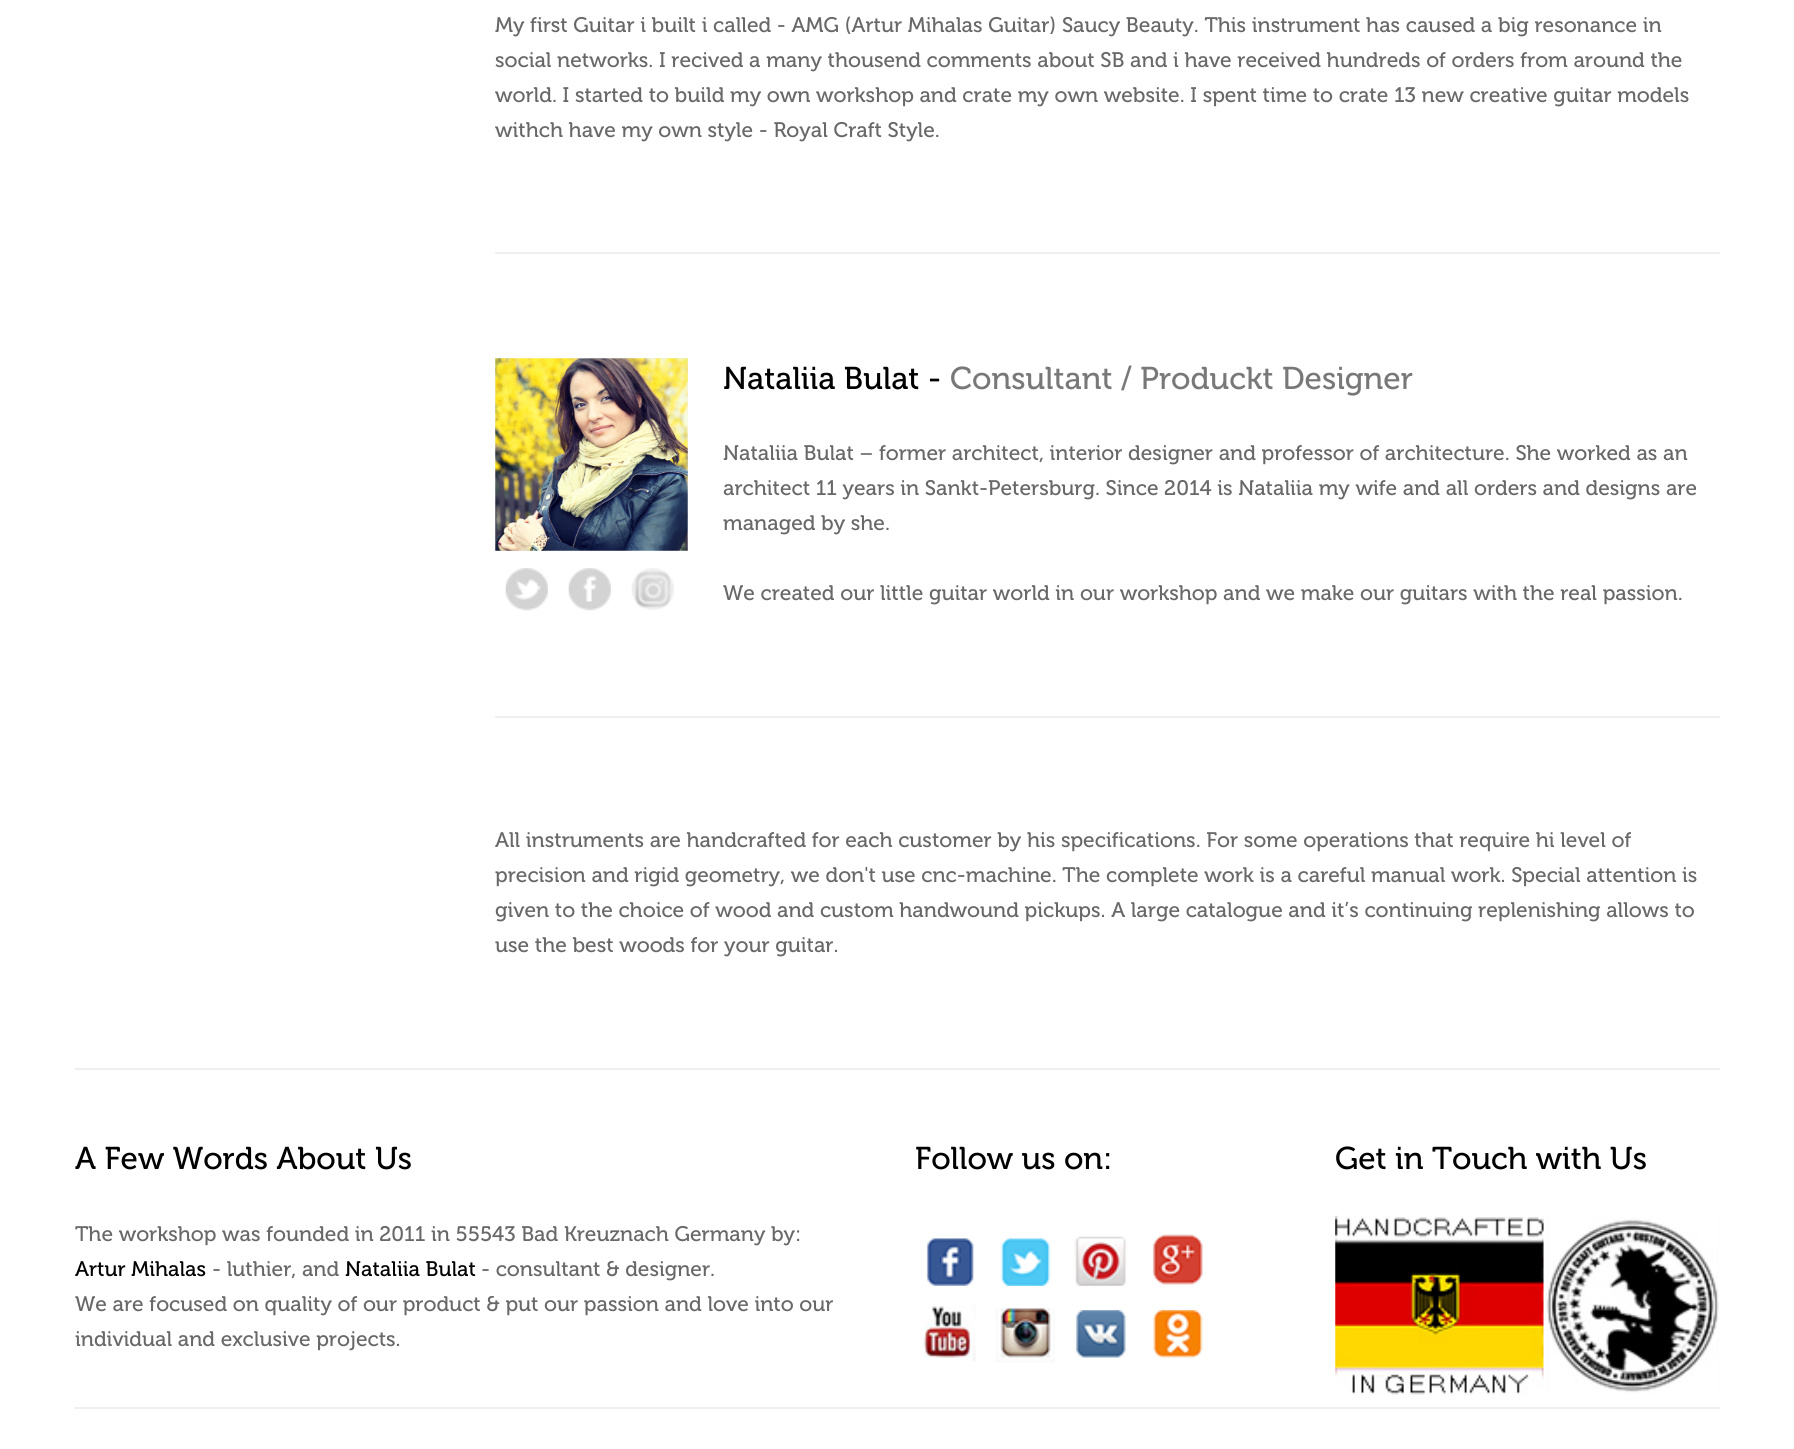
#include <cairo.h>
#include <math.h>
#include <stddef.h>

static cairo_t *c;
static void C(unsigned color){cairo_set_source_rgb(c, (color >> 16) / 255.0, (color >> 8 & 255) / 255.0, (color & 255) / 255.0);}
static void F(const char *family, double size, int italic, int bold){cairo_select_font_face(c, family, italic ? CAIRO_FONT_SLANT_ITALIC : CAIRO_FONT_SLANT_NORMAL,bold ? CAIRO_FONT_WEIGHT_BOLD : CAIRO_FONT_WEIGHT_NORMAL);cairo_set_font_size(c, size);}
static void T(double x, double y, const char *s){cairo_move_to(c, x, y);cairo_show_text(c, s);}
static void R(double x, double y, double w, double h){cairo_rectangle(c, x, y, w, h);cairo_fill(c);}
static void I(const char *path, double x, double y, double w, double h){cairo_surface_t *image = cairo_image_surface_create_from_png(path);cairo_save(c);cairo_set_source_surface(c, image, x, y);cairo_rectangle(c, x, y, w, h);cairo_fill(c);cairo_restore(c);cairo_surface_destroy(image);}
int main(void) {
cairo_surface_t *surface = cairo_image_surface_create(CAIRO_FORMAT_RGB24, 1794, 1449);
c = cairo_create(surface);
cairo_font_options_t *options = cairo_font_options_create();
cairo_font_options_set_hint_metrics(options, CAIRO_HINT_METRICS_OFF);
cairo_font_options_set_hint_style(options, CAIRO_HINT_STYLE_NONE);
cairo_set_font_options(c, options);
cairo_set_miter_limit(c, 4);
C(0xffffff);
cairo_paint(c);
C(0xefefef);
R(495,252,1225,2);
F("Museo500",21,0,0);
C(0x686868);
T(495,32,"My first Guitar i built i called - AMG (Artur Mihalas Guitar) Saucy Beauty. This instrument has caused a big resonance in");
T(495,67,"social networks. I recived a many thousend comments about SB and i have received hundreds of orders from around the");
T(495,102,"world. I started to build my own workshop and crate my own website. I spent time to crate 13 new creative guitar models");
T(495,137,"withch have my own style - Royal Craft Style.");
C(0xefefef);
R(495,716,1225,2);
I("1.png",495,358,193,193);
I("2.png",505,568,43,43);
I("3.png",568,568,43,43);
I("4.png",631,568,43,42);
F("Museo500",31.5,0,0);
C(0x000000);
T(723,389,"Nataliia Bulat -");
C(0x787878);
T(950,389,"Consultant / Produckt Designer");
F("Museo500",21,0,0);
C(0x686868);
T(723,460,"Nataliia Bulat – former architect, interior designer and professor of architecture. She worked as an");
T(723,495,"architect 11 years in Sankt-Petersburg. Since 2014 is Nataliia my wife and all orders and designs are");
T(723,530,"managed by she.");
T(723,600,"We created our little guitar world in our workshop and we make our guitars with the real passion.");
T(495,847,"All instruments are handcrafted for each customer by his specifications. For some operations that require hi level of");
T(495,882,"precision and rigid geometry, we don't use cnc-machine. The complete work is a careful manual work. Special attention is");
T(495,917,"given to the choice of wood and custom handwound pickups. A large catalogue and it’s continuing replenishing allows to");
T(495,952,"use the best woods for your guitar.");
C(0xefefef);
R(75,1068,1645,2);
F("Museo500",31.5,0,0);
C(0x000000);
T(75,1169,"A Few Words About Us");
F("Museo500",21,0,0);
C(0x686868);
T(75,1241,"The workshop was founded in 2011 in 55543 Bad Kreuznach Germany by:");
C(0x000000);
T(75,1276,"Artur Mihalas");
C(0x686868);
T(212,1276,"- luthier, and");
C(0x000000);
T(345,1276,"Nataliia Bulat");
C(0x686868);
T(481,1276,"- consultant & designer.");
T(75,1311,"We are focused on quality of our product & put our passion and love into our");
T(75,1346,"individual and exclusive projects.");
F("Museo500",31.5,0,0);
C(0x000000);
T(915,1169,"Follow us on:");
I("5.png",926,1238,48,48);
I("6.png",1000,1238,51,48);
I("7.png",1074,1236,53,50);
I("8.png",1152,1234,51,51);
I("9.png",923,1304,53,57);
I("10.png",996,1308,59,55);
I("11.png",1075,1310,51,48);
I("12.png",1153,1310,50,48);
T(1335,1169,"Get in Touch with Us");
I("13.png",1335,1215,384,180);
C(0xefefef);
R(75,1407,1645,2);
cairo_surface_write_to_png(surface, "o.png");
cairo_font_options_destroy(options);
cairo_destroy(c);
cairo_surface_destroy(surface);
return 0;
}
